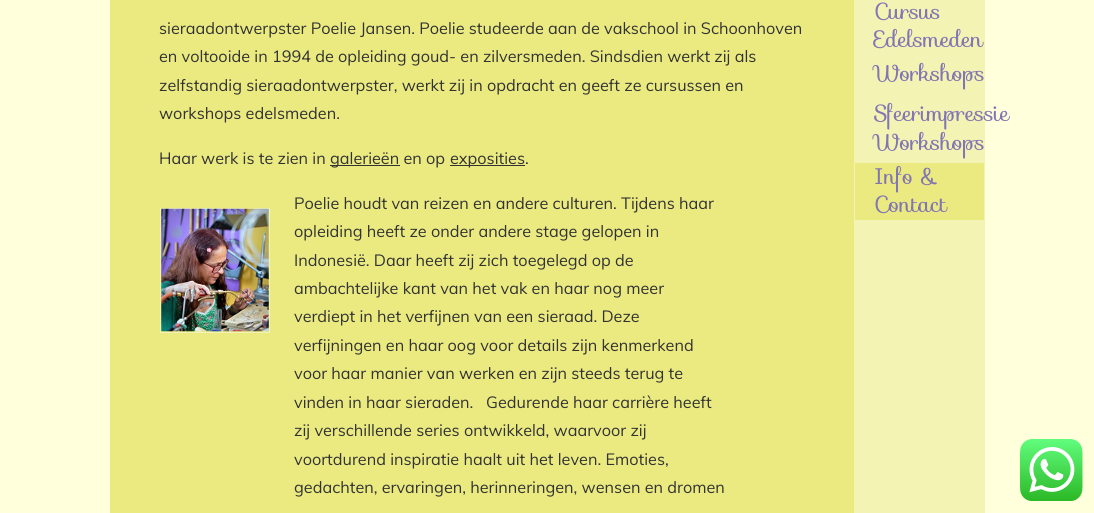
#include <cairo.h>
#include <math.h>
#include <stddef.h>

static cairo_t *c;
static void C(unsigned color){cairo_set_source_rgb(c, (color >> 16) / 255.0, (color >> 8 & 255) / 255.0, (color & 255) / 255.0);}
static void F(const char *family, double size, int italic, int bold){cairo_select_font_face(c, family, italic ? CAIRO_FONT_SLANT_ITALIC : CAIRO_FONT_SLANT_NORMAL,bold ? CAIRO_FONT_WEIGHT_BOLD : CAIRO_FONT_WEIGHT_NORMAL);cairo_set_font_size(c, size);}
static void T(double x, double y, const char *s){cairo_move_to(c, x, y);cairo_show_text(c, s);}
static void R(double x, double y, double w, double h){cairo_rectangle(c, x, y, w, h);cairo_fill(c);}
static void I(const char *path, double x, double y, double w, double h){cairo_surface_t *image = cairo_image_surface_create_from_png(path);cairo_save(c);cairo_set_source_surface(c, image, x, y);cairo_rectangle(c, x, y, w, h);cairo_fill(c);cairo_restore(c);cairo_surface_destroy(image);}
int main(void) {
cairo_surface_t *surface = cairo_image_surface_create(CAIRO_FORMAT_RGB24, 1094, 513);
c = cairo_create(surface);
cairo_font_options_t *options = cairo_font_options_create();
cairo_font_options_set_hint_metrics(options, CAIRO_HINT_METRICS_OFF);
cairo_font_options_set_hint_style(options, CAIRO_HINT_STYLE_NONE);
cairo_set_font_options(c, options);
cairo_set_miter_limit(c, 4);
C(0xffffdb);
cairo_paint(c);
C(0xebea81);
R(110,0,744,513);
F("Muli",16.25,0,0);
C(0x333333);
T(159,34,"sieraadontwerpster Poelie Jansen. Poelie studeerde aan de vakschool in Schoonhoven");
T(159,62,"en voltooide in 1994 de opleiding goud- en zilversmeden. Sindsdien werkt zij als");
T(159,91,"zelfstandig sieraadontwerpster, werkt zij in opdracht en geeft ze cursussen en");
T(159,119,"workshops edelsmeden.");
T(159,164,"Haar werk is te zien in");
R(330,165,70,1);
T(330,164,"galerieën en op");
R(450,165,75,1);
T(450,164,"exposities.");
cairo_rectangle(c,160.5,208.5,109,124);
C(0xf3f3b4);
cairo_set_line_width(c,1);
cairo_stroke(c);
I("1.png",161,208,108,124);
C(0x333333);
T(294,209,"Poelie houdt van reizen en andere culturen. Tijdens haar");
T(294,237,"opleiding heeft ze onder andere stage gelopen in");
T(294,266,"Indonesië. Daar heeft zij zich toegelegd op de");
T(294,294,"ambachtelijke kant van het vak en haar nog meer");
T(294,322,"verdiept in het verfijnen van een sieraad. Deze");
T(294,351,"verfijningen en haar oog voor details zijn kenmerkend");
T(294,379,"voor haar manier van werken en zijn steeds terug te");
T(294,408,"vinden in haar sieraden.   Gedurende haar carrière heeft");
T(294,436,"zij verschillende series ontwikkeld, waarvoor zij");
T(294,465,"voortdurend inspiratie haalt uit het leven. Emoties,");
T(294,493,"gedachten, ervaringen, herinneringen, wensen en dromen");
C(0xf3f3b4);
R(854,0,131,513);
F("Sofia",22.5,0,0);
C(0x8275b3);
T(874,19,"Cursus");
T(874,47,"Edelsmeden");
T(874,81,"Workshops");
T(874,121,"Sfeerimpressie");
T(874,150,"Workshops");
C(0xebea81);
R(855,163,129,57);
C(0x8275b3);
T(874,184,"Info &");
T(874,212,"Contact");
I("2.png",1020,439,63,62);
cairo_surface_write_to_png(surface, "o.png");
cairo_font_options_destroy(options);
cairo_destroy(c);
cairo_surface_destroy(surface);
return 0;
}
